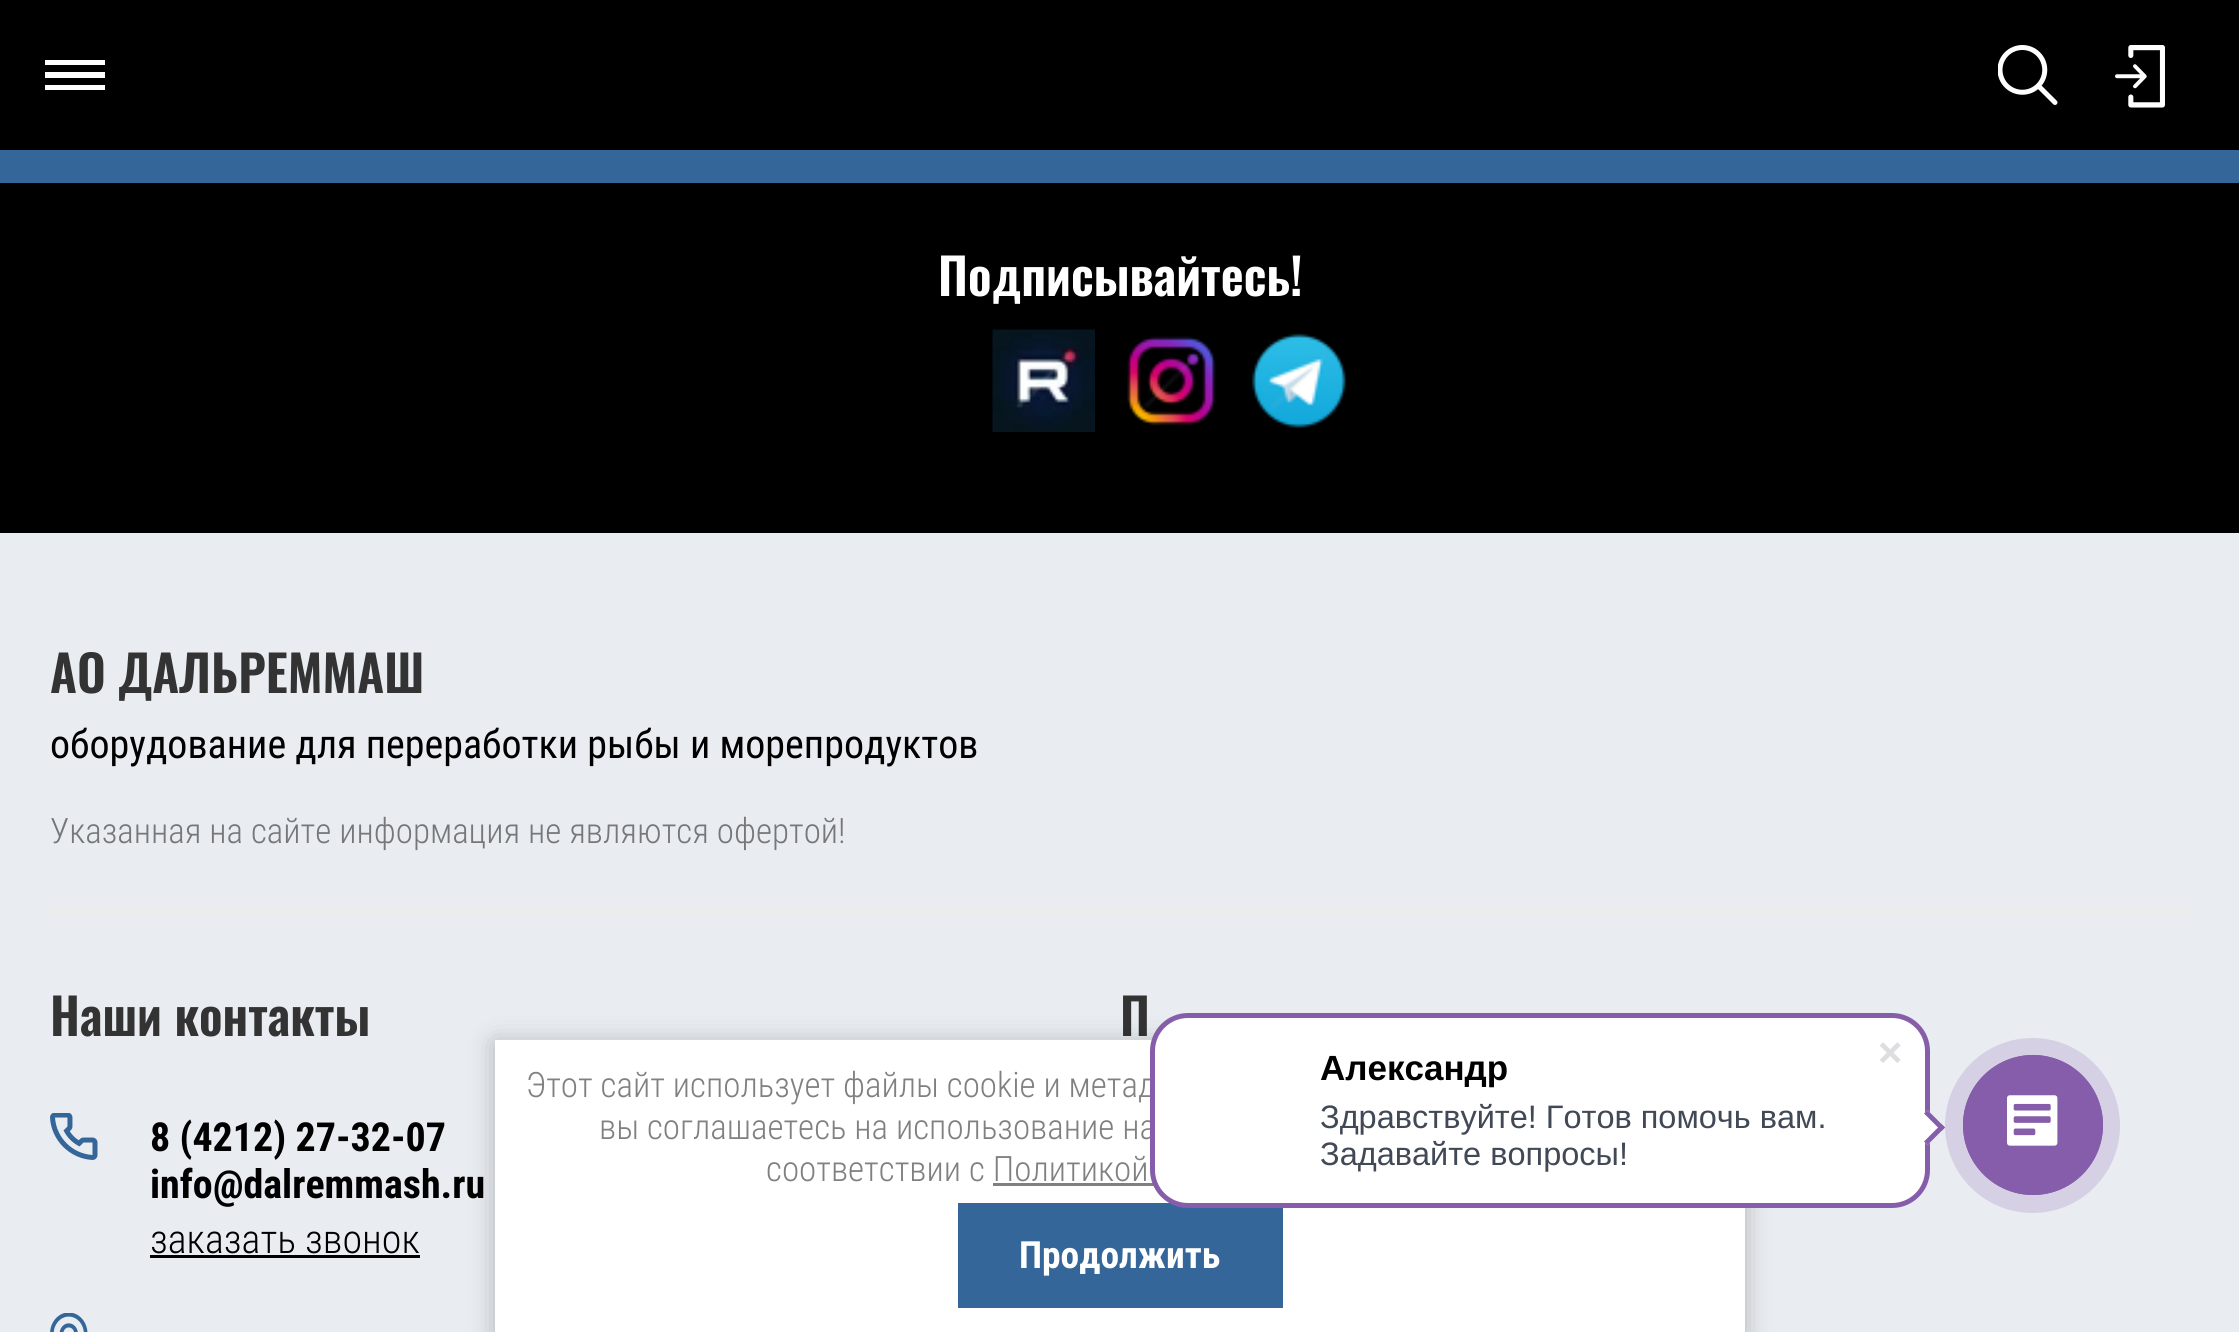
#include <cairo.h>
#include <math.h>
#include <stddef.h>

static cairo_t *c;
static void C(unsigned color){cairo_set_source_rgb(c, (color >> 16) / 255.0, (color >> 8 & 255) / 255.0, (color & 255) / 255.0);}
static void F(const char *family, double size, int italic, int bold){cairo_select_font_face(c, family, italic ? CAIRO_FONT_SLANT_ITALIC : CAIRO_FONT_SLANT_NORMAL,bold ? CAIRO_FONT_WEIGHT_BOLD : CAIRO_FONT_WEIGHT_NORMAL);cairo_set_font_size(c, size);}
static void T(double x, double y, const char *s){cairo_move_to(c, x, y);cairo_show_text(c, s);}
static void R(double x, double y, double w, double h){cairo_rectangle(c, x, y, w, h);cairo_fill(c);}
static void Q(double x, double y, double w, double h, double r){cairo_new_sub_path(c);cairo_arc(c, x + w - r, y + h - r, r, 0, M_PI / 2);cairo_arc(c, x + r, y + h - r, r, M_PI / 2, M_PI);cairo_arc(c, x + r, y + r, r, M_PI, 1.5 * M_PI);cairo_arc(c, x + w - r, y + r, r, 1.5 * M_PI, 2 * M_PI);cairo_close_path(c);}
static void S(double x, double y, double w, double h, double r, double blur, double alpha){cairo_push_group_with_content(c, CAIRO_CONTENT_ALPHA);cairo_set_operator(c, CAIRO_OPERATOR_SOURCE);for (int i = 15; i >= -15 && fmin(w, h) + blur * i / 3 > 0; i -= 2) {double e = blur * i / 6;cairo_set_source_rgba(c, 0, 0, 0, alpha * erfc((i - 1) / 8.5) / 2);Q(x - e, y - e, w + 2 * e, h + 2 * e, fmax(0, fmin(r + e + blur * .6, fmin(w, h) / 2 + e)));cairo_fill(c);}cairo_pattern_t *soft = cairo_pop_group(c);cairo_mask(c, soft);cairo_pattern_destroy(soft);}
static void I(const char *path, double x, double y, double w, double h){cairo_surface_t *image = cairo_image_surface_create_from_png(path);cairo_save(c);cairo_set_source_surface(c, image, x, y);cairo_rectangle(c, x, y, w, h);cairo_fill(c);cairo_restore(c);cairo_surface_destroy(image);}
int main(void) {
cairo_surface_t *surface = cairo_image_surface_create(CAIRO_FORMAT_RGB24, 2239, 1332);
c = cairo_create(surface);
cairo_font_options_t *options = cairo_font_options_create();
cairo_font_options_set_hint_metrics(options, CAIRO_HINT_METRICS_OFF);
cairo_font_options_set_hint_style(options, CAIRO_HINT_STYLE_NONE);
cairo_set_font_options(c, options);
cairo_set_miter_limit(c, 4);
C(0xe9edf1);
cairo_paint(c);
C(0x000000);
R(0,0,2239,150);
C(0xffffff);
cairo_new_path(c);
cairo_move_to(c,45,90);
cairo_line_to(c,45,85);
cairo_line_to(c,105,85);
cairo_line_to(c,105,90);
cairo_close_path(c);
cairo_move_to(c,45,72);
cairo_line_to(c,105,72);
cairo_line_to(c,105,78);
cairo_line_to(c,45,78);
cairo_close_path(c);
cairo_move_to(c,45,60);
cairo_line_to(c,105,60);
cairo_line_to(c,105,65);
cairo_line_to(c,45,65);
cairo_close_path(c);
cairo_fill(c);
I("1.png",1998,45,60,60);
I("2.png",2115,45,50,63);
C(0x346699);
R(0,150,2239,33);
C(0x000000);
R(0,183,2239,350);
F("Oswald SemiBold",50,0,0);
C(0xffffff);
T(938,296,"Подписывайтесь!");
I("3.png",992,329,103,103);
I("4.png",1127,336,89,90);
I("5.png",1251,333,95,95);
C(0xecedeb);
R(50,910,2140,3);
C(0x333333);
T(50,693,"АО ДАЛЬРЕММАШ");
F("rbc",40,0,0);
C(0x000000);
T(50,758,"оборудование для переработки рыбы и морепродуктов");
F("Roboto Condensed Light",35,0,0);
C(0x757779);
T(50,843,"Указанная на сайте информация не являются офертой!");
F("Oswald SemiBold",50,0,0);
C(0x333333);
T(50,1036,"Наши контакты");
I("6.png",50,1113,48,47);
F("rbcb",40,0,1);
C(0x000000);
T(150,1151,"8 (4212) 27-32-07");
T(150,1198,"info@dalremmash.ru");
F("Roboto Condensed Light",40,0,0);
T(150,1253,"заказать звонок");
R(150,1255,270,3);
I("7.png",50,1313,38,19);
F("Oswald SemiBold",50,0,0);
C(0x333333);
T(1120,1036,"П");
C(0x000000);
S(495,1043,1250,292,0,12.5,.25);
C(0xffffff);
R(495,1040,1250,292);
F("Roboto Condensed Light",35,0,0);
C(0x808080);
T(526,1097,"Этот сайт использует файлы cookie и метад");
T(599,1139,"вы соглашаетесь на использование на");
R(993,1183,161,3);
C(0x346699);
R(958,1203,325,105);
C(0xffffff);
Q(1152.5,1015.5,775,190,35.5);
cairo_fill_preserve(c);
C(0x865daa);
cairo_set_line_width(c,5);
cairo_stroke(c);
I("8.png",1879,1042,22,21);
F("Liberation Sans",35,0,1);
C(0x000000);
T(1320,1080,"Александр");
F("Liberation Sans",32.5,0,0);
C(0x424956);
T(1320,1128,"Здравствуйте! Готов помочь вам.");
T(1320,1165,"Задавайте вопросы!");
C(0xffffff);
cairo_new_path(c);
cairo_move_to(c,1910,1127.5);
cairo_line_to(c,1927.5,1110);
cairo_line_to(c,1945,1127.5);
cairo_line_to(c,1927.5,1145);
cairo_close_path(c);
cairo_fill(c);
C(0x865daa);
cairo_new_path(c);
cairo_move_to(c,1924,1113.5);
cairo_line_to(c,1927.5,1110);
cairo_line_to(c,1945,1127.5);
cairo_line_to(c,1941.5,1131);
cairo_close_path(c);
cairo_fill(c);
cairo_new_path(c);
cairo_move_to(c,1924,1141.5);
cairo_line_to(c,1941.5,1124);
cairo_line_to(c,1945,1127.5);
cairo_line_to(c,1927.5,1145);
cairo_close_path(c);
cairo_fill(c);
C(0xd5d0e3);
cairo_arc(c,2032.5,1125.5,87.5,0,2 * M_PI);
cairo_fill(c);
cairo_arc(c,2033,1125,69,0,2 * M_PI);
C(0x865daa);
cairo_set_line_width(c,2);
cairo_stroke(c);
cairo_arc(c,2033,1125,70,0,2 * M_PI);
cairo_fill(c);
I("9.png",2007,1095,51,51);
F("Roboto Condensed Light",35,0,0);
C(0x808080);
T(766,1181,"соответствии с Политикой");
F("rbcb",37.5,0,1);
C(0xffffff);
T(1019,1268,"Продолжить");
cairo_surface_write_to_png(surface, "o.png");
cairo_font_options_destroy(options);
cairo_destroy(c);
cairo_surface_destroy(surface);
return 0;
}
